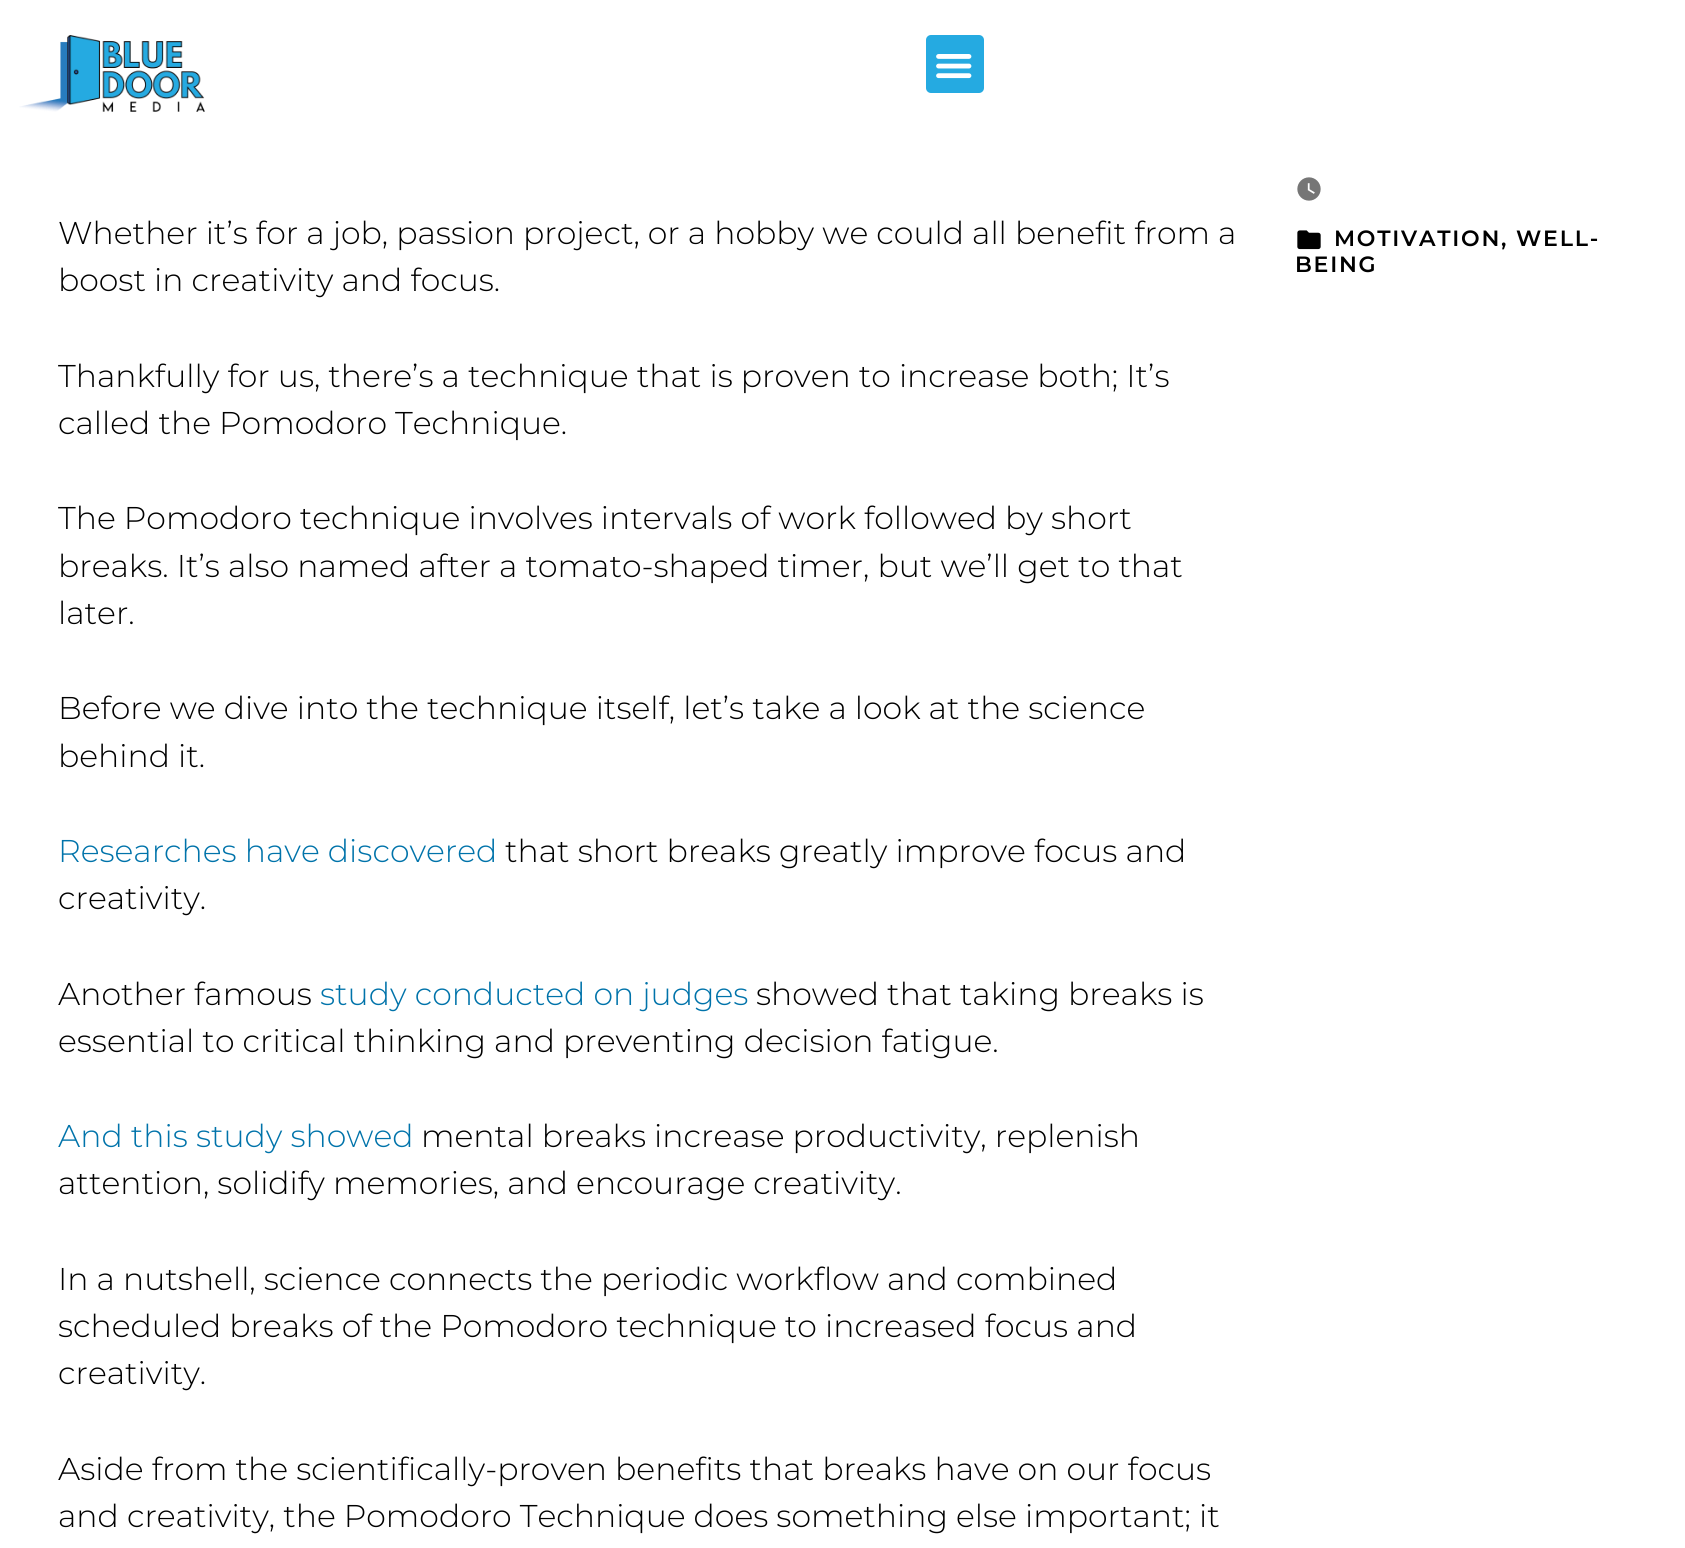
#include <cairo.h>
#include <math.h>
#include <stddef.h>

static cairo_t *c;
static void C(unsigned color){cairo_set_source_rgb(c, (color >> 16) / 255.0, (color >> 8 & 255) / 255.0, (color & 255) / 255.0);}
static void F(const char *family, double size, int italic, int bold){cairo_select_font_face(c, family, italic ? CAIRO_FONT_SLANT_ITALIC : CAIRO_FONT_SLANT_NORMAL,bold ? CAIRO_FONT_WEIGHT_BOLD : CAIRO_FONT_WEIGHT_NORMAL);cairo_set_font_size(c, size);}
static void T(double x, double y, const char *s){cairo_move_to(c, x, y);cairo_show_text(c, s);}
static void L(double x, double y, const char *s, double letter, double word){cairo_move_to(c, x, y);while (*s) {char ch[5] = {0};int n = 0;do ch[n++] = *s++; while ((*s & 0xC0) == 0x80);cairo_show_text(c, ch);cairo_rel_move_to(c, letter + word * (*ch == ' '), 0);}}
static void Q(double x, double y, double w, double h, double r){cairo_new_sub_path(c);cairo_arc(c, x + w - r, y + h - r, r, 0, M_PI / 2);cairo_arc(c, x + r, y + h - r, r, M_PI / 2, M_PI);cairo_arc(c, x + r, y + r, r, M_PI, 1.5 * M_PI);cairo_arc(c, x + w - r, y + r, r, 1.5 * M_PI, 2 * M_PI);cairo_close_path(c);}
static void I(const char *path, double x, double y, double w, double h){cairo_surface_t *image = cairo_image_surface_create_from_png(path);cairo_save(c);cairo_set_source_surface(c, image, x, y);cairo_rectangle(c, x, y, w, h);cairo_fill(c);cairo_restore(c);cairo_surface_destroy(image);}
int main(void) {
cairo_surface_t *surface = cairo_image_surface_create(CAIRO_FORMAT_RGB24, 1685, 1548);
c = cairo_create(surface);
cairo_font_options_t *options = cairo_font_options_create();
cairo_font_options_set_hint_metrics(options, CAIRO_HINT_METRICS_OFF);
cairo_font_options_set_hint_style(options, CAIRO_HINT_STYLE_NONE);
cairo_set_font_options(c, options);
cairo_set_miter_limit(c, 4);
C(0xffffff);
cairo_paint(c);
I("1.png",19,35,186,77);
C(0x25aae1);
Q(926,35,58,58,5);
cairo_fill(c);
I("2.png",936,54,36,25);
F("Montserrat Light",31.5,0,0);
C(0x000000);
T(58,244,"Whether it’s for a job, passion project, or a hobby we could all benefit from a");
T(58,291,"boost in creativity and focus.");
T(58,387,"Thankfully for us, there’s a technique that is proven to increase both; It’s");
T(58,434,"called the Pomodoro Technique.");
T(58,529,"The Pomodoro technique involves intervals of work followed by short");
T(58,577,"breaks. It’s also named after a tomato-shaped timer, but we’ll get to that");
T(58,624,"later.");
T(58,719,"Before we dive into the technique itself, let’s take a look at the science");
T(58,767,"behind it.");
C(0x0073aa);
T(58,862,"Researches have discovered");
C(0x000000);
T(505,862,"that short breaks greatly improve focus and");
T(58,909,"creativity.");
T(58,1005,"Another famous");
C(0x0073aa);
T(320,1005,"study conducted on judges");
C(0x000000);
T(756,1005,"showed that taking breaks is");
T(58,1052,"essential to critical thinking and preventing decision fatigue.");
C(0x0073aa);
T(58,1147,"And this study showed");
C(0x000000);
T(421,1147,"mental breaks increase productivity, replenish");
T(58,1194,"attention, solidify memories, and encourage creativity.");
T(58,1290,"In a nutshell, science connects the periodic workflow and combined");
T(58,1337,"scheduled breaks of the Pomodoro technique to increased focus and");
T(58,1384,"creativity.");
T(58,1480,"Aside from the scientifically-proven benefits that breaks have on our focus");
T(58,1527,"and creativity, the Pomodoro Technique does something else important; it");
I("3.png",1297,177,24,24);
I("4.png",1297,230,24,20);
F("Montserrat SemiBold",22.1,0,0);
L(1334,246,"MOTIVATION, WELL-",1.75,0);
L(1295,272,"BEING",1.75,0);
cairo_surface_write_to_png(surface, "o.png");
cairo_font_options_destroy(options);
cairo_destroy(c);
cairo_surface_destroy(surface);
return 0;
}
